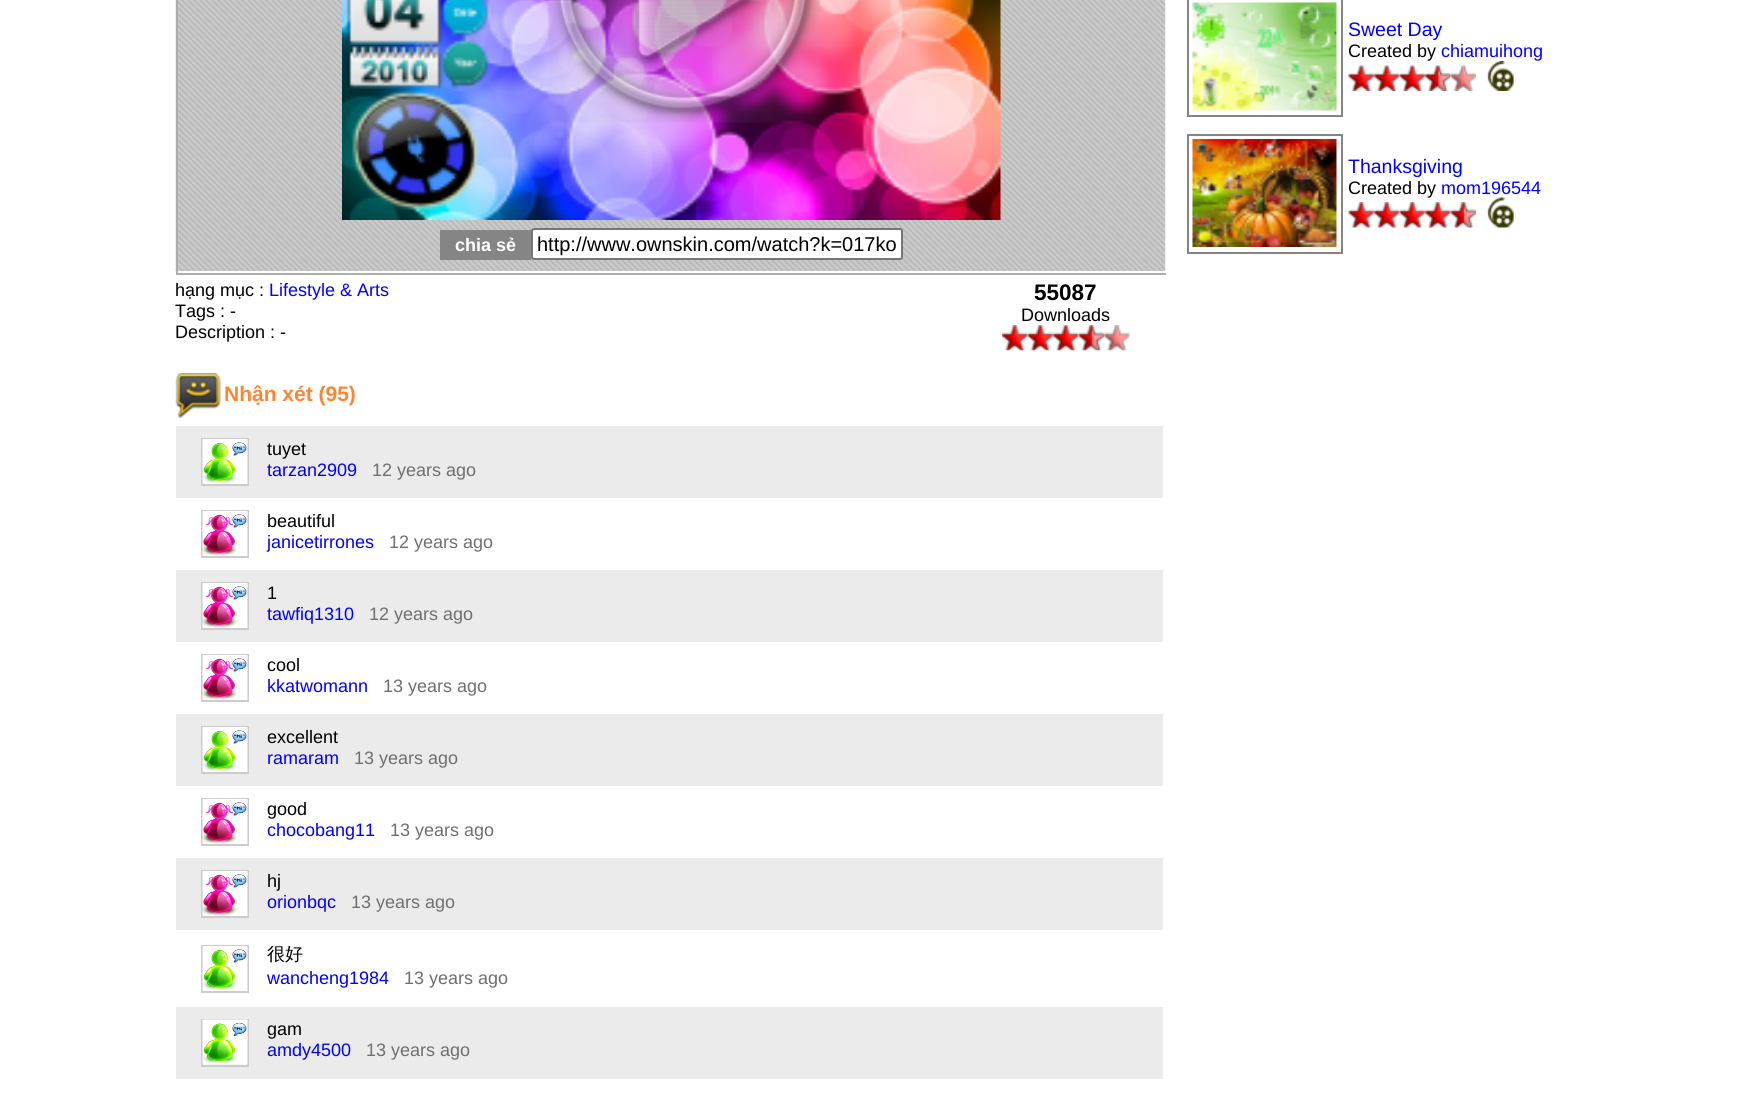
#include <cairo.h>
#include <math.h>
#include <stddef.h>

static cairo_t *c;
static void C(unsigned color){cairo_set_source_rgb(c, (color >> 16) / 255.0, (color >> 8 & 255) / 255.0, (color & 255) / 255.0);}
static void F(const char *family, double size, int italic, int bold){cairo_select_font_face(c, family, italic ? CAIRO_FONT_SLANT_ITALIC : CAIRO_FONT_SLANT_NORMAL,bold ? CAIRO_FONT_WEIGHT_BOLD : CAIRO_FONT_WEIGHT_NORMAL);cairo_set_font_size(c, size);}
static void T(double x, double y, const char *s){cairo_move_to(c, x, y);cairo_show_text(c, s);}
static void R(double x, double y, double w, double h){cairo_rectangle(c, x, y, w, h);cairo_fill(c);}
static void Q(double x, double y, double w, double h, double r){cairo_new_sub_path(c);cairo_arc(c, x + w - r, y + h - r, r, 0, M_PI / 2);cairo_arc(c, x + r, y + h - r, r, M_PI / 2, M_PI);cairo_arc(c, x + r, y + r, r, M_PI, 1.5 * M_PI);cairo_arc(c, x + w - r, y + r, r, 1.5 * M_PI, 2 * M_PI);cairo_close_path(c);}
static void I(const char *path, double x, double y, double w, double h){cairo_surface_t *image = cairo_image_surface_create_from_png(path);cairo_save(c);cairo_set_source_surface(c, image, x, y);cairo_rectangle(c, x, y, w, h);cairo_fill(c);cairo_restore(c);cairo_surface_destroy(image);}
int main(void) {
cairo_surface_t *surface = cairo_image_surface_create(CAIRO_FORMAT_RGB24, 1759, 1099);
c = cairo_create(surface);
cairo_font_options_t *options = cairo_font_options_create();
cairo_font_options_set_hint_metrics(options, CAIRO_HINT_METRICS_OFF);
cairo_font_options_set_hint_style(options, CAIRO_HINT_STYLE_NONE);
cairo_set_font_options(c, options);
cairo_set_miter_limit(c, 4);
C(0xffffff);
cairo_paint(c);
cairo_rectangle(c,1188,-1,154,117);
C(0x858585);
cairo_stroke(c);
I("1.png",1192,2,145,109);
F("Liberation Sans",19.5,0,0);
C(0x0000ff);
T(1348,36,"Sweet Day");
F("Liberation Sans",18,0,0);
C(0x000000);
T(1348,57,"Created by");
C(0x0000ff);
T(1441,57,"chiamuihong");
I("2.png",1348,65,26,26);
I("3.png",1374,65,26,26);
I("4.png",1399,65,26,26);
I("5.png",1425,65,26,26);
I("6.png",1450,65,26,26);
I("7.png",1487,61,27,30);
cairo_rectangle(c,1188,135,154,118);
C(0x858585);
cairo_stroke(c);
I("8.png",1192,139,145,108);
F("Liberation Sans",19.5,0,0);
C(0x0000ff);
T(1348,173,"Thanksgiving");
F("Liberation Sans",18,0,0);
C(0x000000);
T(1348,194,"Created by");
C(0x0000ff);
T(1441,194,"mom196544");
I("9.png",1348,202,26,26);
I("10.png",1374,202,26,26);
I("11.png",1399,202,26,26);
I("10.png",1425,202,26,26);
I("12.png",1450,202,26,26);
I("13.png",1487,197,27,31);
I("14.png",175,0,991,271);
cairo_save(c);
cairo_rectangle(c,176,0,990,351);
cairo_clip(c);
cairo_rectangle(c,177,-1,991,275);
C(0xadadad);
cairo_stroke(c);
cairo_restore(c);
I("15.png",342,0,659,220);
I("16.png",549,0,272,123);
C(0x858585);
R(440,230,91,30);
F("Liberation Sans",18,0,1);
C(0xffffff);
T(455,251,"chia sẻ");
Q(532,229,370,30,2);
cairo_fill_preserve(c);
C(0x767676);
cairo_stroke(c);
F("Liberation Sans",20,0,0);
C(0x000000);
T(537,251,"http://www.ownskin.com/watch?k=017ko");
F("Liberation Sans",18,0,0);
T(175,296,"hạng mục :");
C(0x0000ff);
T(269,296,"Lifestyle & Arts");
C(0x000000);
T(175,317,"Tags : -");
T(175,338,"Description : -");
F("Liberation Sans",22.5,0,1);
T(1034,300,"55087");
F("Liberation Sans",18,0,0);
T(1021,321,"Downloads");
I("17.png",1002,325,26,26);
I("18.png",1027,325,26,26);
I("19.png",1053,325,26,26);
I("20.png",1078,325,26,26);
I("21.png",1104,325,26,26);
I("22.png",175,373,46,45);
F("Liberation Sans",21,0,1);
C(0xff8531);
T(224,401,"Nhận xét (95)");
C(0xebebeb);
R(176,426,987,72);
cairo_rectangle(c,202,439,46,46);
C(0xcccccc);
cairo_stroke(c);
I("23.png",202,439,46,45);
F("Liberation Sans",18,0,0);
C(0x000000);
T(267,455,"tuyet");
C(0x0000ff);
T(267,476,"tarzan2909");
C(0x6f6f6f);
T(372,476,"12 years ago");
cairo_rectangle(c,202,511,46,46);
C(0xcccccc);
cairo_stroke(c);
I("24.png",202,511,46,45);
C(0x000000);
T(267,527,"beautiful");
C(0x0000ff);
T(267,548,"janicetirrones");
C(0x6f6f6f);
T(389,548,"12 years ago");
C(0xebebeb);
R(176,570,987,72);
cairo_rectangle(c,202,583,46,46);
C(0xcccccc);
cairo_stroke(c);
I("24.png",202,583,46,45);
C(0x000000);
T(267,599,"1");
C(0x0000ff);
T(267,620,"tawfiq1310");
C(0x6f6f6f);
T(369,620,"12 years ago");
cairo_rectangle(c,202,655,46,46);
C(0xcccccc);
cairo_stroke(c);
I("25.png",202,655,46,45);
C(0x000000);
T(267,671,"cool");
C(0x0000ff);
T(267,692,"kkatwomann");
C(0x6f6f6f);
T(383,692,"13 years ago");
C(0xebebeb);
R(176,714,987,72);
cairo_rectangle(c,202,727,46,46);
C(0xcccccc);
cairo_stroke(c);
I("23.png",202,727,46,45);
C(0x000000);
T(267,743,"excellent");
C(0x0000ff);
T(267,764,"ramaram");
C(0x6f6f6f);
T(354,764,"13 years ago");
cairo_rectangle(c,202,799,46,46);
C(0xcccccc);
cairo_stroke(c);
I("24.png",202,799,46,45);
C(0x000000);
T(267,815,"good");
C(0x0000ff);
T(267,836,"chocobang11");
C(0x6f6f6f);
T(390,836,"13 years ago");
C(0xebebeb);
R(176,858,987,72);
cairo_rectangle(c,202,871,46,46);
C(0xcccccc);
cairo_stroke(c);
I("24.png",202,871,46,45);
C(0x000000);
T(267,887,"hj");
C(0x0000ff);
T(267,908,"orionbqc");
C(0x6f6f6f);
T(351,908,"13 years ago");
cairo_rectangle(c,202,946,46,46);
C(0xcccccc);
cairo_stroke(c);
I("26.png",202,946,46,45);
F("WenQuanYi Zen Hei Medium",18,0,0);
C(0x000000);
T(267,960,"很好");
F("Liberation Sans",18,0,0);
C(0x0000ff);
T(267,984,"wancheng1984");
C(0x6f6f6f);
T(404,984,"13 years ago");
C(0xebebeb);
R(176,1007,987,72);
cairo_rectangle(c,202,1020,46,46);
C(0xcccccc);
cairo_stroke(c);
I("27.png",202,1019,46,46);
C(0x000000);
T(267,1035,"gam");
C(0x0000ff);
T(267,1056,"amdy4500");
C(0x6f6f6f);
T(366,1056,"13 years ago");
cairo_surface_write_to_png(surface, "o.png");
cairo_font_options_destroy(options);
cairo_destroy(c);
cairo_surface_destroy(surface);
return 0;
}
